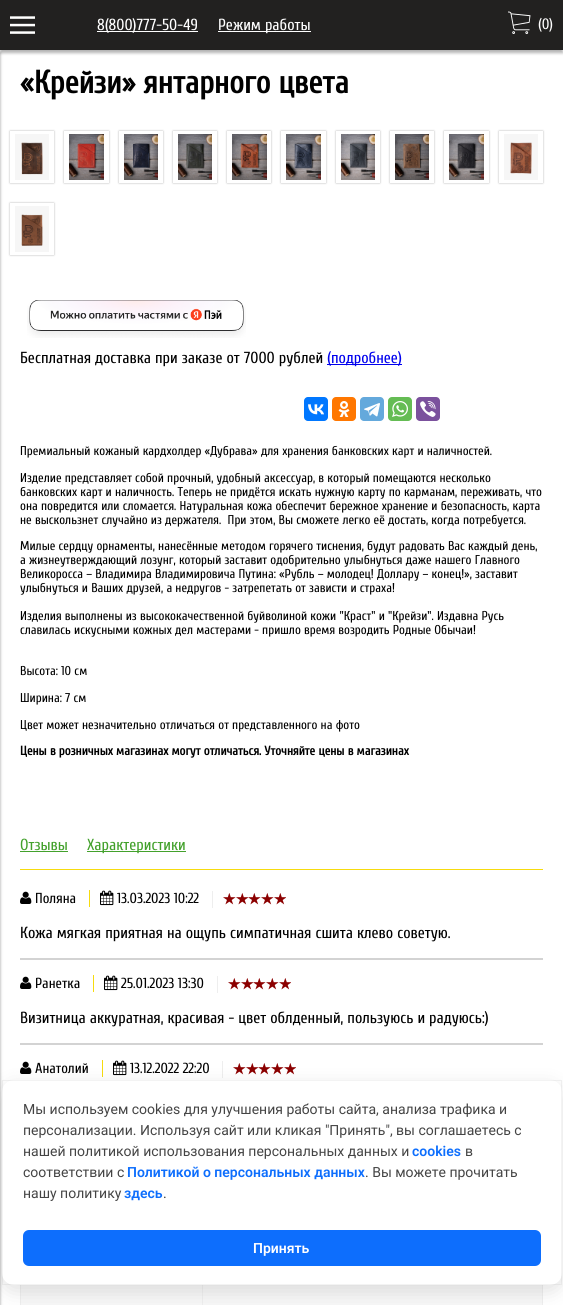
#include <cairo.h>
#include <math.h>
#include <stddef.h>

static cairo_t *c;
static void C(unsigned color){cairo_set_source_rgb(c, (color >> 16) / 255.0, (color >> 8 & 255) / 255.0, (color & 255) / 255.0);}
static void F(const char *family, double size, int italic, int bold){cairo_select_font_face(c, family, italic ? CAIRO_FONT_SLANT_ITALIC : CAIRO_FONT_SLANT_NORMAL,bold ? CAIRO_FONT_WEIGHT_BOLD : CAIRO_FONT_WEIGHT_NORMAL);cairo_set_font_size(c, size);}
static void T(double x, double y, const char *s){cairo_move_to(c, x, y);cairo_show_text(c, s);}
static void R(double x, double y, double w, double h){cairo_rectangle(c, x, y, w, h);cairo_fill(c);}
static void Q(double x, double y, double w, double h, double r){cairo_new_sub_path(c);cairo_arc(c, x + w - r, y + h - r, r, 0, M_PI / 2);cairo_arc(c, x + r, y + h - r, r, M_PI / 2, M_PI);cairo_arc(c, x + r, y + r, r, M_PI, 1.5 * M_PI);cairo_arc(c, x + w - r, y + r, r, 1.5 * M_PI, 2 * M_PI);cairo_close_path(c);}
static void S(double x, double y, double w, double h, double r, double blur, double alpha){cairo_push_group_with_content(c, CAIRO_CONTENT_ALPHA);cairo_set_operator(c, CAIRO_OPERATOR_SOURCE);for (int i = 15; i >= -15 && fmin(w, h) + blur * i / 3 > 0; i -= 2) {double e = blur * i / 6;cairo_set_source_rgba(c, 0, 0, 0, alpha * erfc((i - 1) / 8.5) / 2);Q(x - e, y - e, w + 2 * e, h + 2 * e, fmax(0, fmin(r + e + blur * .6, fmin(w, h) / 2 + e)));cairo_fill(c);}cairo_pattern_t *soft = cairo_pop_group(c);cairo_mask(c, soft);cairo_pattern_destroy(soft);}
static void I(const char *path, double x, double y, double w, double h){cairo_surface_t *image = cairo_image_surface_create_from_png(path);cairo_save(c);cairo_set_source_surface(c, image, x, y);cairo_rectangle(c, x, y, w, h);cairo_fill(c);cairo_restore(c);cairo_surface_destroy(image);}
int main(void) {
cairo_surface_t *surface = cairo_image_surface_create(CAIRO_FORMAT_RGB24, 563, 1305);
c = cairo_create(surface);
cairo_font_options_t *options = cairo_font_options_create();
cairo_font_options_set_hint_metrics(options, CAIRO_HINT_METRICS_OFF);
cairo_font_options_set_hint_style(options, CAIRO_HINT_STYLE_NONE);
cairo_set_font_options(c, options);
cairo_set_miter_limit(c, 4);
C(0xffffff);
cairo_paint(c);
C(0x000000);
S(0,3,563,50,0,1.5,.3);
C(0x222120);
R(0,0,563,50);
I("1.png",10,16,25,18);
C(0xffffff);
R(97,31,101,1);
F("Cuprum",16,0,0);
T(97,30,"8(800)777-50-49");
R(218,31,93,1);
T(218,30,"Режим работы");
I("2.png",508,11,23,23);
F("Cuprum",15,0,0);
T(538,29,"(0)");
C(0x000000);
S(-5,53,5,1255,0,1.5,.4);
F("Cuprum",32,0,1);
C(0x000000);
T(20,93,"«Крейзи» янтарного цвета");
cairo_save(c);
cairo_set_fill_rule(c,CAIRO_FILL_RULE_EVEN_ODD);
cairo_new_path(c);
cairo_move_to(c,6,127);
cairo_line_to(c,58,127);
cairo_line_to(c,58,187);
cairo_line_to(c,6,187);
cairo_close_path(c);
cairo_move_to(c,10,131);
cairo_line_to(c,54,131);
cairo_line_to(c,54,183);
cairo_line_to(c,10,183);
cairo_close_path(c);
cairo_clip(c);
C(0x000000);
S(10,131,44,52,0,1,.3);
cairo_restore(c);
I("3.png",15,134,34,46);
cairo_save(c);
cairo_set_fill_rule(c,CAIRO_FILL_RULE_EVEN_ODD);
cairo_new_path(c);
cairo_move_to(c,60,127);
cairo_line_to(c,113,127);
cairo_line_to(c,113,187);
cairo_line_to(c,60,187);
cairo_close_path(c);
cairo_move_to(c,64,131);
cairo_line_to(c,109,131);
cairo_line_to(c,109,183);
cairo_line_to(c,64,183);
cairo_close_path(c);
cairo_clip(c);
C(0x000000);
S(64,131,45,52,0,1,.3);
cairo_restore(c);
I("4.png",69,134,35,46);
cairo_save(c);
cairo_set_fill_rule(c,CAIRO_FILL_RULE_EVEN_ODD);
cairo_new_path(c);
cairo_move_to(c,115,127);
cairo_line_to(c,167,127);
cairo_line_to(c,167,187);
cairo_line_to(c,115,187);
cairo_close_path(c);
cairo_move_to(c,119,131);
cairo_line_to(c,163,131);
cairo_line_to(c,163,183);
cairo_line_to(c,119,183);
cairo_close_path(c);
cairo_clip(c);
C(0x000000);
S(119,131,44,52,0,1,.3);
cairo_restore(c);
I("5.png",124,134,34,46);
cairo_save(c);
cairo_set_fill_rule(c,CAIRO_FILL_RULE_EVEN_ODD);
cairo_new_path(c);
cairo_move_to(c,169,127);
cairo_line_to(c,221,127);
cairo_line_to(c,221,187);
cairo_line_to(c,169,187);
cairo_close_path(c);
cairo_move_to(c,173,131);
cairo_line_to(c,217,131);
cairo_line_to(c,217,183);
cairo_line_to(c,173,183);
cairo_close_path(c);
cairo_clip(c);
C(0x000000);
S(173,131,44,52,0,1,.3);
cairo_restore(c);
I("6.png",178,134,34,46);
cairo_save(c);
cairo_set_fill_rule(c,CAIRO_FILL_RULE_EVEN_ODD);
cairo_new_path(c);
cairo_move_to(c,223,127);
cairo_line_to(c,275,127);
cairo_line_to(c,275,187);
cairo_line_to(c,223,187);
cairo_close_path(c);
cairo_move_to(c,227,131);
cairo_line_to(c,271,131);
cairo_line_to(c,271,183);
cairo_line_to(c,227,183);
cairo_close_path(c);
cairo_clip(c);
C(0x000000);
S(227,131,44,52,0,1,.3);
cairo_restore(c);
I("7.png",232,134,35,46);
cairo_save(c);
cairo_set_fill_rule(c,CAIRO_FILL_RULE_EVEN_ODD);
cairo_new_path(c);
cairo_move_to(c,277,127);
cairo_line_to(c,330,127);
cairo_line_to(c,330,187);
cairo_line_to(c,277,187);
cairo_close_path(c);
cairo_move_to(c,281,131);
cairo_line_to(c,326,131);
cairo_line_to(c,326,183);
cairo_line_to(c,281,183);
cairo_close_path(c);
cairo_clip(c);
C(0x000000);
S(281,131,45,52,0,1,.3);
cairo_restore(c);
I("8.png",286,134,35,46);
cairo_save(c);
cairo_set_fill_rule(c,CAIRO_FILL_RULE_EVEN_ODD);
cairo_new_path(c);
cairo_move_to(c,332,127);
cairo_line_to(c,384,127);
cairo_line_to(c,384,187);
cairo_line_to(c,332,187);
cairo_close_path(c);
cairo_move_to(c,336,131);
cairo_line_to(c,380,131);
cairo_line_to(c,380,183);
cairo_line_to(c,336,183);
cairo_close_path(c);
cairo_clip(c);
C(0x000000);
S(336,131,44,52,0,1,.3);
cairo_restore(c);
I("9.png",341,134,34,46);
cairo_save(c);
cairo_set_fill_rule(c,CAIRO_FILL_RULE_EVEN_ODD);
cairo_new_path(c);
cairo_move_to(c,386,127);
cairo_line_to(c,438,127);
cairo_line_to(c,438,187);
cairo_line_to(c,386,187);
cairo_close_path(c);
cairo_move_to(c,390,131);
cairo_line_to(c,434,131);
cairo_line_to(c,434,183);
cairo_line_to(c,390,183);
cairo_close_path(c);
cairo_clip(c);
C(0x000000);
S(390,131,44,52,0,1,.3);
cairo_restore(c);
I("10.png",395,134,34,46);
cairo_save(c);
cairo_set_fill_rule(c,CAIRO_FILL_RULE_EVEN_ODD);
cairo_new_path(c);
cairo_move_to(c,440,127);
cairo_line_to(c,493,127);
cairo_line_to(c,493,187);
cairo_line_to(c,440,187);
cairo_close_path(c);
cairo_move_to(c,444,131);
cairo_line_to(c,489,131);
cairo_line_to(c,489,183);
cairo_line_to(c,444,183);
cairo_close_path(c);
cairo_clip(c);
C(0x000000);
S(444,131,45,52,0,1,.3);
cairo_restore(c);
I("11.png",449,134,35,46);
cairo_save(c);
cairo_set_fill_rule(c,CAIRO_FILL_RULE_EVEN_ODD);
cairo_new_path(c);
cairo_move_to(c,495,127);
cairo_line_to(c,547,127);
cairo_line_to(c,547,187);
cairo_line_to(c,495,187);
cairo_close_path(c);
cairo_move_to(c,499,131);
cairo_line_to(c,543,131);
cairo_line_to(c,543,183);
cairo_line_to(c,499,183);
cairo_close_path(c);
cairo_clip(c);
C(0x000000);
S(499,131,44,52,0,1,.3);
cairo_restore(c);
I("12.png",504,134,34,46);
cairo_save(c);
cairo_set_fill_rule(c,CAIRO_FILL_RULE_EVEN_ODD);
cairo_new_path(c);
cairo_move_to(c,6,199);
cairo_line_to(c,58,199);
cairo_line_to(c,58,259);
cairo_line_to(c,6,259);
cairo_close_path(c);
cairo_move_to(c,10,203);
cairo_line_to(c,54,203);
cairo_line_to(c,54,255);
cairo_line_to(c,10,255);
cairo_close_path(c);
cairo_clip(c);
C(0x000000);
S(10,203,44,52,0,1,.3);
cairo_restore(c);
I("13.png",15,206,34,46);
I("14.png",27,300,219,38);
F("Cuprum",16,0,0);
T(20,363,"Бесплатная доставка при заказе от 7000 рублей");
C(0x0000ee);
R(327,364,75,1);
T(327,363,"(подробнее)");
C(0x0077ff);
Q(304,397,24,24,4);
cairo_fill(c);
I("15.png",308,404,16,11);
C(0xff7700);
Q(332,397,24,24,4);
cairo_fill(c);
I("16.png",338,401,12,16);
C(0x64a9dc);
Q(360,397,24,24,4);
cairo_fill(c);
I("17.png",364,403,16,14);
C(0x65bc54);
Q(388,397,24,24,4);
cairo_fill(c);
I("18.png",392,401,16,16);
C(0x7b519d);
Q(416,397,24,24,4);
cairo_fill(c);
I("19.png",420,401,16,16);
F("Cuprum",12.8,0,0);
C(0x000000);
T(20,455,"Премиальный кожаный кардхолдер «Дубрава» для хранения банковских карт и наличностей.");
T(20,482,"Изделие представляет собой прочный, удобный аксессуар, в который помещаются несколько");
T(20,496,"банковских карт и наличность. Теперь не придётся искать нужную карту по карманам, переживать, что");
T(20,510,"она повредится или сломается. Натуральная кожа обеспечит бережное хранение и безопасность, карта");
T(20,524,"не выскользнет случайно из держателя.  При этом, Вы сможете легко её достать, когда потребуется.");
T(20,550,"Милые сердцу орнаменты, нанесённые методом горячего тиснения, будут радовать Вас каждый день,");
T(20,564,"а жизнеутверждающий лозунг, который заставит одобрительно улыбнуться даже нашего Главного");
T(20,578,"Великоросса – Владимира Владимировича Путина: «Рубль – молодец! Доллару – конец!», заставит");
T(20,592,"улыбнуться и Ваших друзей, а недругов - затрепетать от зависти и страха!");
T(20,620,"Изделия выполнены из высококачественной буйволиной кожи \"Краст\" и \"Крейзи\". Издавна Русь");
T(20,634,"славилась искусными кожных дел мастерами - пришло время возродить Родные Обычаи!");
T(20,675,"Высота: 10 см");
T(20,702,"Ширина: 7 см");
T(20,729,"Цвет может незначительно отличаться от представленного на фото");
F("Cuprum",12.8,0,1);
T(20,755,"Цены в розничных магазинах могут отличаться. Уточняйте цены в магазинах");
C(0xf6db0e);
R(20,869,523,1);
F("Cuprum",16,0,0);
C(0x43a12c);
T(20,850,"Отзывы");
R(20,851,48,1);
R(87,851,99,1);
T(87,850,"Характеристики");
C(0xd3d3d3);
R(20,958,523,2);
I("20.png",20,891,12,13);
F("Cuprum",14.5,0,0);
C(0x000000);
T(35,903,"Поляна");
C(0xf6db0e);
R(89,890,1,17);
I("21.png",100,890,14,16);
C(0x000000);
T(117,903,"13.03.2023 10:22");
C(0xeeeeee);
R(212,891,1,17);
I("22.png",223,893,13,12);
I("23.png",236,893,12,12);
I("22.png",248,893,13,12);
I("22.png",261,893,13,12);
I("23.png",274,893,12,12);
F("Cuprum",16,0,0);
C(0x000000);
T(20,938,"Кожа мягкая приятная на ощупь симпатичная сшита клево советую.");
C(0xd3d3d3);
R(20,1043,523,2);
I("20.png",20,976,12,13);
F("Cuprum",14.5,0,0);
C(0x000000);
T(35,988,"Ранетка");
C(0xf6db0e);
R(93,975,1,17);
I("21.png",104,975,14,16);
C(0x000000);
T(121,988,"25.01.2023 13:30");
C(0xeeeeee);
R(217,976,1,17);
I("22.png",228,978,13,12);
I("23.png",241,978,12,12);
I("22.png",253,978,13,12);
I("22.png",266,978,13,12);
I("23.png",279,978,12,12);
F("Cuprum",16,0,0);
C(0x000000);
T(20,1023,"Визитница аккуратная, красивая - цвет облденный, пользуюсь и радуюсь:)");
I("20.png",20,1061,12,13);
F("Cuprum",14.5,0,0);
T(35,1073,"Анатолий");
C(0xf6db0e);
R(102,1060,1,17);
I("21.png",113,1060,14,16);
C(0x000000);
T(130,1073,"13.12.2022 22:20");
C(0xeeeeee);
R(222,1061,1,17);
I("22.png",233,1063,13,12);
I("23.png",246,1063,12,12);
I("22.png",258,1063,13,12);
I("22.png",271,1063,13,12);
I("23.png",284,1063,12,12);
R(542,1285,1,20);
R(20,1285,1,20);
C(0xf7f7f7);
R(21,1285,181,20);
R(203,1285,339,20);
C(0xeeeeee);
R(202,1284,1,21);
C(0x000000);
S(2,1086,560,205,12,10,.12);
C(0xffffff);
Q(2,1080,560,205,12);
cairo_fill(c);
cairo_rectangle(c,2.5,1080.5,559,204);
cairo_set_source_rgba(c,0,0,0,0.05);
cairo_set_line_width(c,1);
cairo_stroke(c);
F("Roboto",14,0,0);
C(0x444444);
T(23,1114,"Мы используем cookies для улучшения работы сайта, анализа трафика и");
T(23,1135,"персонализации. Используя сайт или кликая \"Принять\", вы соглашаетесь с");
T(23,1156,"нашей политикой использования персональных данных и");
F("Roboto SemiBold",14,0,0);
C(0x0d6efd);
T(412,1156,"cookies");
F("Roboto",14,0,0);
C(0x444444);
T(465,1156,"в");
T(23,1177,"соответствии с");
F("Roboto SemiBold",14,0,0);
C(0x0d6efd);
T(127,1177,"Политикой о персональных данных");
F("Roboto",14,0,0);
C(0x444444);
T(365,1177,". Вы можете прочитать");
T(23,1198,"нашу политику");
F("Roboto SemiBold",14,0,0);
C(0x0d6efd);
T(124,1198,"здесь");
F("Roboto",14,0,0);
C(0x444444);
T(163,1198,".");
C(0x0d6efd);
Q(23,1230,518,36,6);
cairo_fill(c);
F("Roboto SemiBold",14,0,0);
C(0xffffff);
T(253,1253,"Принять");
cairo_surface_write_to_png(surface, "o.png");
cairo_font_options_destroy(options);
cairo_destroy(c);
cairo_surface_destroy(surface);
return 0;
}
